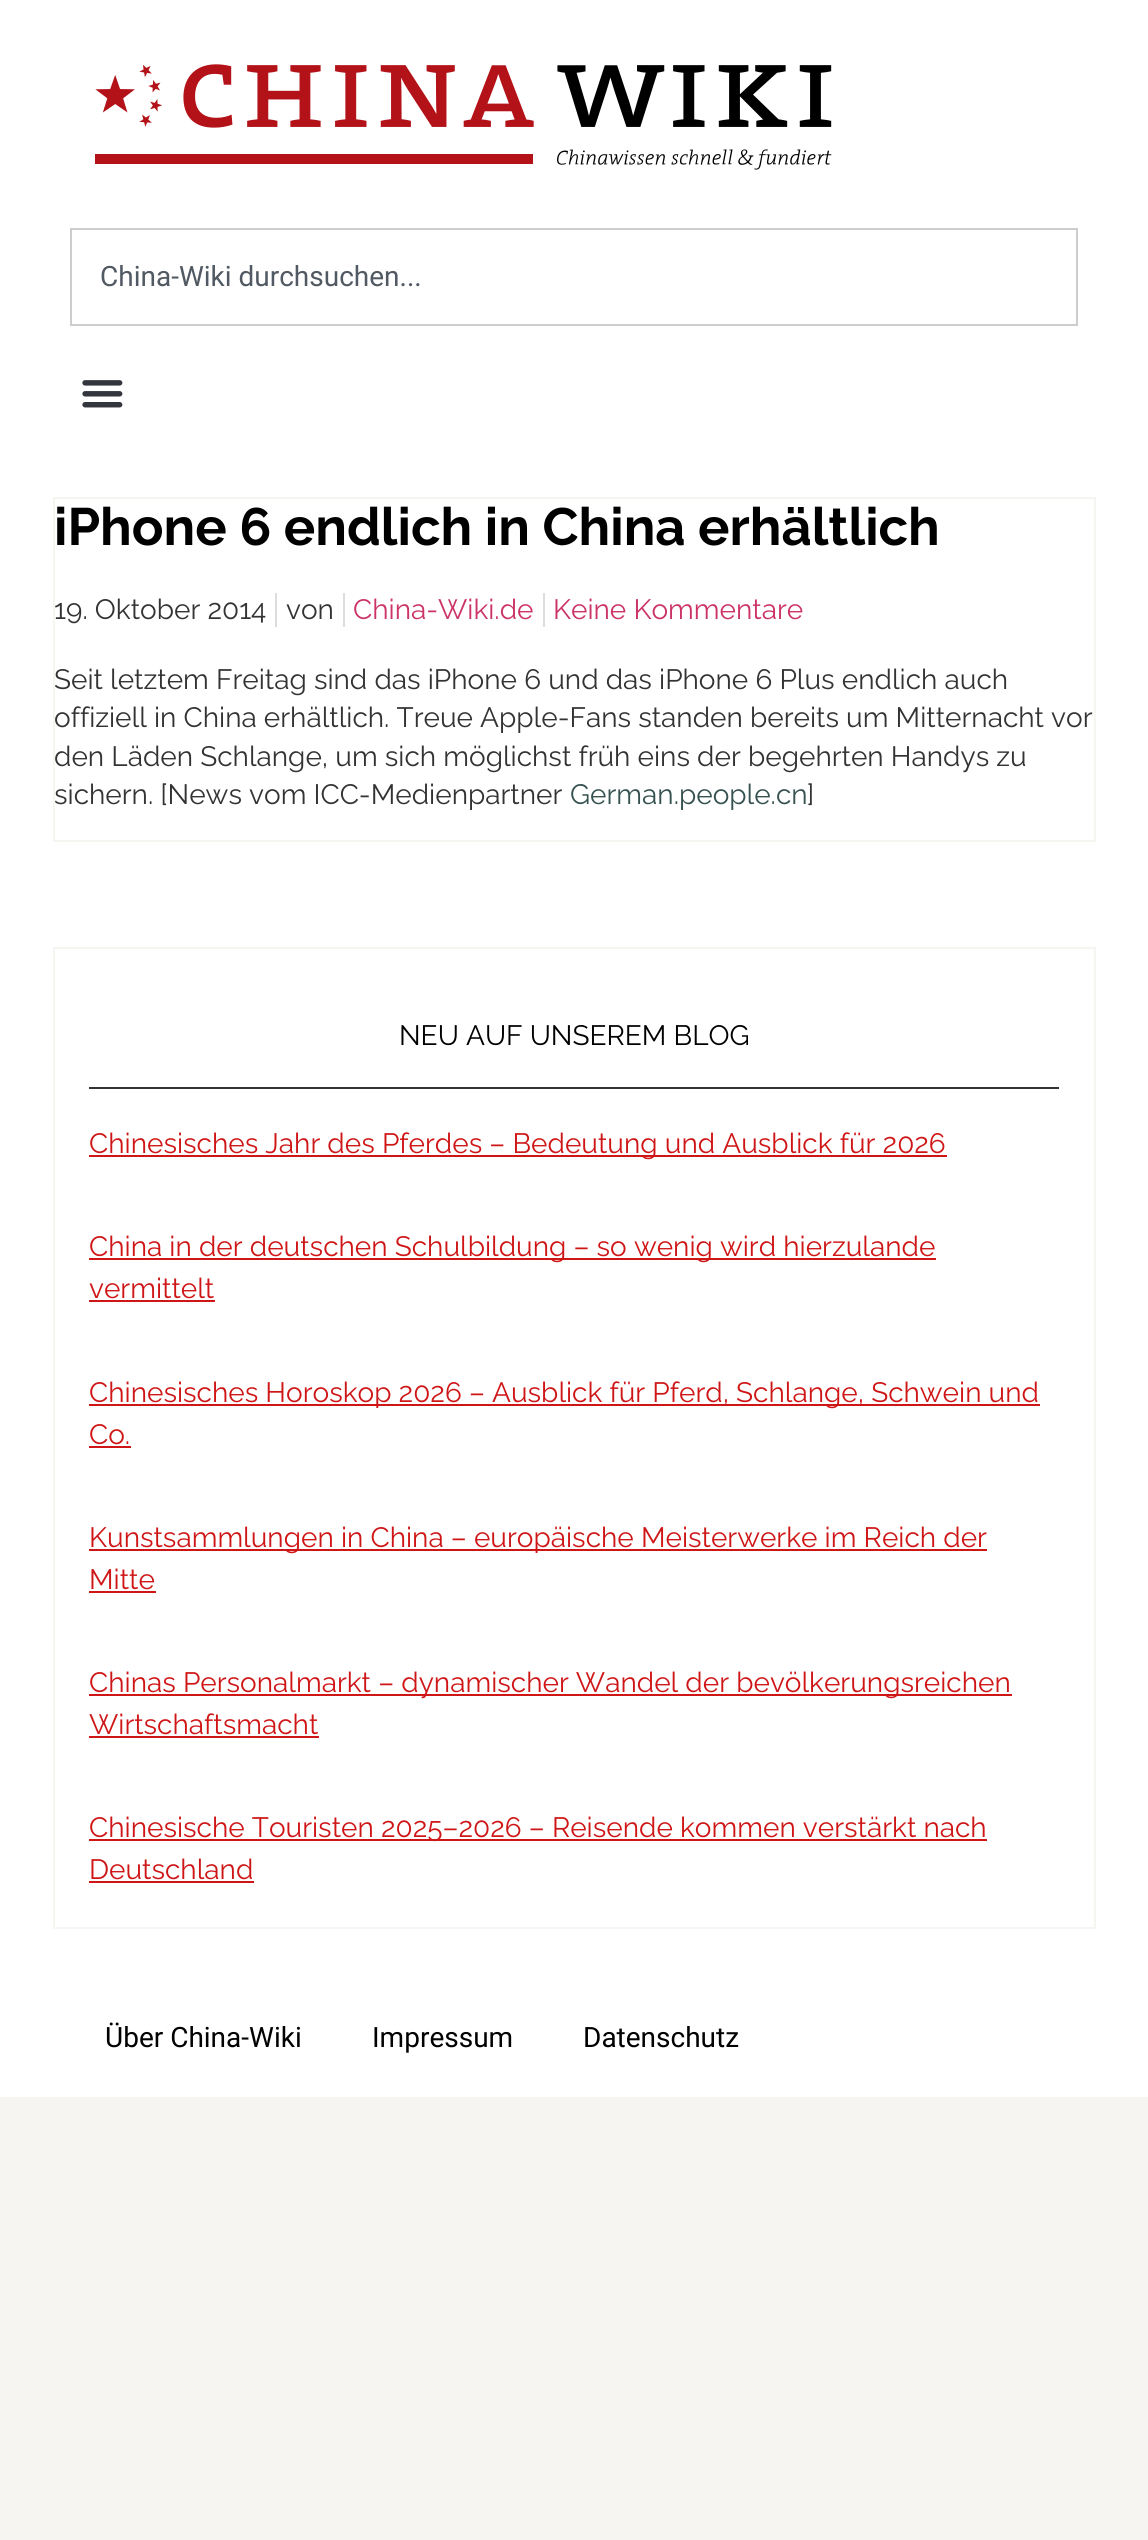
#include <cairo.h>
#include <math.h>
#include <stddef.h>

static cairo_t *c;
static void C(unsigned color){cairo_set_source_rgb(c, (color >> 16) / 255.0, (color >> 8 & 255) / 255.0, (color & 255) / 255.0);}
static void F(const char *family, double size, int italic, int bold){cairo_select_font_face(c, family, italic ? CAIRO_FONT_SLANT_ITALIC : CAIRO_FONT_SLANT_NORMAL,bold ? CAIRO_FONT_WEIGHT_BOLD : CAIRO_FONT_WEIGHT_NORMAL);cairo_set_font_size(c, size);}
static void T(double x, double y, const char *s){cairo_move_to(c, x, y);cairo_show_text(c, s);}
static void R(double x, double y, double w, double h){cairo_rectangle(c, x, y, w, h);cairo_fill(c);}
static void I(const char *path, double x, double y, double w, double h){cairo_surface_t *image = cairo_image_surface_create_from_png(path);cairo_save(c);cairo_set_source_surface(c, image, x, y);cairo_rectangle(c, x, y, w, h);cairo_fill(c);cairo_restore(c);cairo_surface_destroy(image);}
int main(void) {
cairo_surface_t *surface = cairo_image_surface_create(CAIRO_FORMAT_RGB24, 1148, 2540);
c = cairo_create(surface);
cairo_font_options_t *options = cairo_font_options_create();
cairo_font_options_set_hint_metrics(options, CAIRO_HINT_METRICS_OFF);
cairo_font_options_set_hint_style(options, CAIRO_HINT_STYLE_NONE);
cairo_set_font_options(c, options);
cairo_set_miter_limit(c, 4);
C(0xf6f5f2);
cairo_paint(c);
C(0xffffff);
R(0,0,1148,2097);
I("1.png",95,64,737,106);
cairo_rectangle(c,71,229,1006,96);
C(0xcdcdcd);
cairo_stroke(c);
F("Roboto",28,0,0);
C(0x515962);
T(100,286,"China-Wiki durchsuchen...");
I("2.png",82,380,41,28);
cairo_rectangle(c,54,498,1041,343);
C(0xf6f5f2);
cairo_stroke(c);
F("Raleway",52.5,0,1);
C(0x000000);
T(54,545,"iPhone 6 endlich in China erhältlich");
F("Raleway",28,0,0);
C(0x333333);
T(54,619,"19. Oktober 2014");
C(0xdddddd);
R(275,593,2,34);
C(0x333333);
T(286,619,"von");
C(0xdddddd);
R(343,593,2,34);
C(0xcc3366);
T(353,619,"China-Wiki.de");
C(0xdddddd);
R(543,593,2,34);
C(0xcc3366);
T(553,619,"Keine Kommentare");
C(0x333333);
T(54,689,"Seit letztem Freitag sind das iPhone 6 und das iPhone 6 Plus endlich auch");
T(54,727,"offiziell in China erhältlich. Treue Apple-Fans standen bereits um Mitternacht vor");
T(54,766,"den Läden Schlange, um sich möglichst früh eins der begehrten Handys zu");
T(54,804,"sichern. [News vom ICC-Medienpartner");
C(0x355250);
T(570,804,"German.people.cn");
C(0x333333);
T(807,804,"]");
cairo_rectangle(c,54,948,1041,980);
C(0xf6f5f2);
cairo_stroke(c);
C(0x333333);
R(89,1087,970,2);
C(0x000000);
T(399,1045,"NEU AUF UNSEREM BLOG");
C(0xcf1617);
R(89,1155,858,2);
T(89,1153,"Chinesisches Jahr des Pferdes – Bedeutung und Ausblick für 2026");
R(89,1258,847,2);
T(89,1256,"China in der deutschen Schulbildung – so wenig wird hierzulande");
T(89,1298,"vermittelt");
R(89,1300,126,2);
R(89,1404,951,2);
T(89,1402,"Chinesisches Horoskop 2026 – Ausblick für Pferd, Schlange, Schwein und");
T(89,1444,"Co.");
R(89,1446,42,2);
R(89,1549,898,2);
T(89,1547,"Kunstsammlungen in China – europäische Meisterwerke im Reich der");
T(89,1589,"Mitte");
R(89,1591,67,2);
R(89,1694,923,2);
T(89,1692,"Chinas Personalmarkt – dynamischer Wandel der bevölkerungsreichen");
T(89,1734,"Wirtschaftsmacht");
R(89,1736,230,2);
R(89,1839,898,2);
T(89,1837,"Chinesische Touristen 2025–2026 – Reisende kommen verstärkt nach");
T(89,1879,"Deutschland");
R(89,1881,165,2);
F("Roboto",28,0,0);
C(0x000000);
T(105,2047,"Über China-Wiki");
T(372,2047,"Impressum");
T(583,2047,"Datenschutz");
cairo_surface_write_to_png(surface, "o.png");
cairo_font_options_destroy(options);
cairo_destroy(c);
cairo_surface_destroy(surface);
return 0;
}
